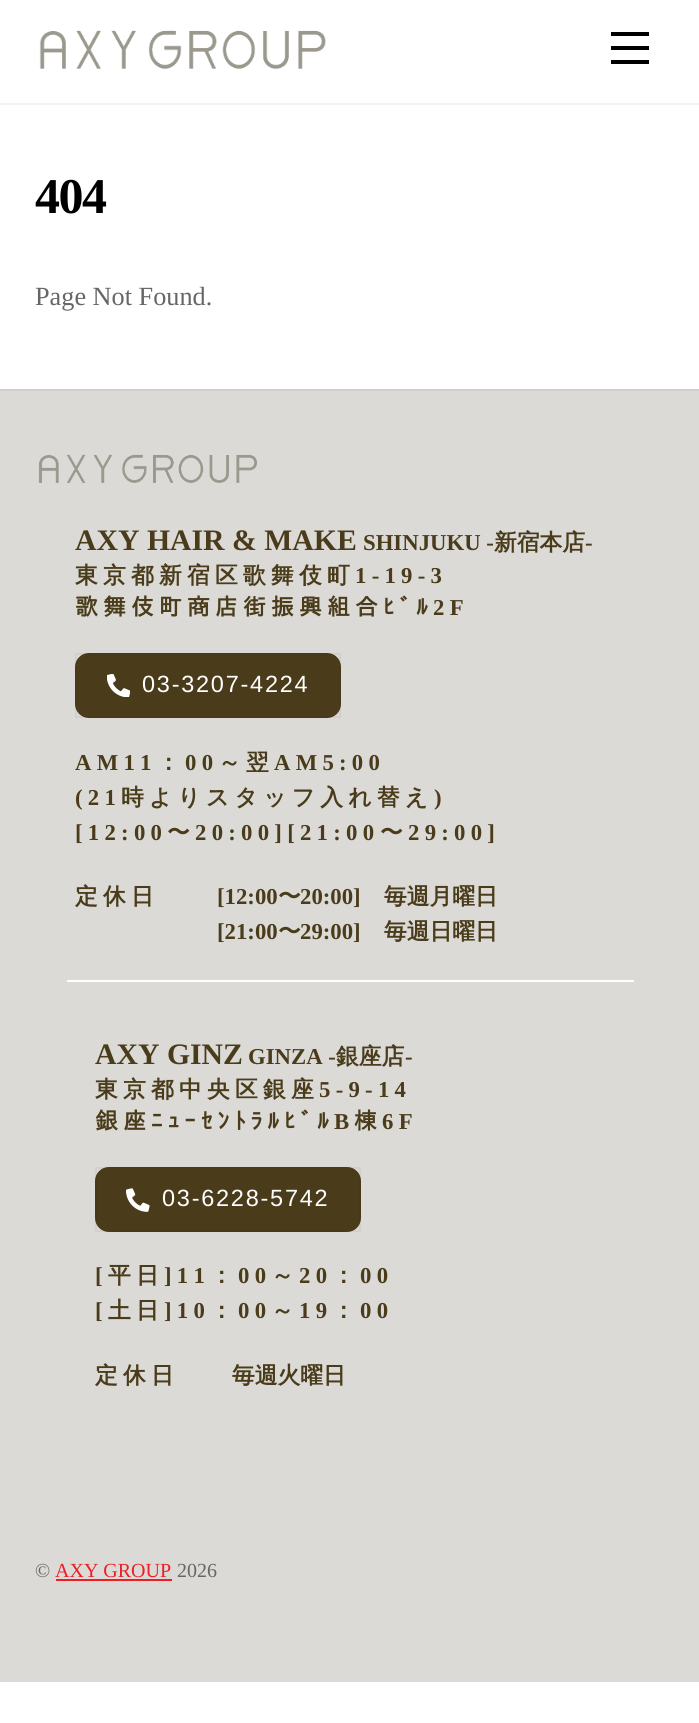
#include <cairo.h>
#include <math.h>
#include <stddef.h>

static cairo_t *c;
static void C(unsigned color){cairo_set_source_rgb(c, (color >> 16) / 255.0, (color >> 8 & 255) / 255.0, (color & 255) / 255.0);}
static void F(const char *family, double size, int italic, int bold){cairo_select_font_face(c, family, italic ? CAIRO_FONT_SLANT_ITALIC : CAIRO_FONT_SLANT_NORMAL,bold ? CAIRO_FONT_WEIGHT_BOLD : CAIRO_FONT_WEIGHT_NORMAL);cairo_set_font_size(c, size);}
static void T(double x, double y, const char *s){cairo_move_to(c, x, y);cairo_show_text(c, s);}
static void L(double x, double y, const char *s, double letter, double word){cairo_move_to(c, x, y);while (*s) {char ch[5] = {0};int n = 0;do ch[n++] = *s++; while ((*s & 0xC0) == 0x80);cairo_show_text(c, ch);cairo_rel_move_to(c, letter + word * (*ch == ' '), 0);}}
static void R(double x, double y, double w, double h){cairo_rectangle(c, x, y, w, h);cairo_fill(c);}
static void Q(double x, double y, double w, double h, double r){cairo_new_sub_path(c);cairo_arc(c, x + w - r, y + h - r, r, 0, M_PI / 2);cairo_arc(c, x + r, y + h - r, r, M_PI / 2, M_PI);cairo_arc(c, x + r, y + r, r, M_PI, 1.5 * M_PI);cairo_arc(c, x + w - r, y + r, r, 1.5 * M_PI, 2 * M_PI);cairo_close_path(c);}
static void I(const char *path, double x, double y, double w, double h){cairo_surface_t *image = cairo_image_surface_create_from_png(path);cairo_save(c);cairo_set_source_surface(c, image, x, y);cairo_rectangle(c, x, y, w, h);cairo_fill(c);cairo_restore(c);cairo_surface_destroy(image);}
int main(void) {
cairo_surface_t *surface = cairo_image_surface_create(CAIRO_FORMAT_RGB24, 699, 1723);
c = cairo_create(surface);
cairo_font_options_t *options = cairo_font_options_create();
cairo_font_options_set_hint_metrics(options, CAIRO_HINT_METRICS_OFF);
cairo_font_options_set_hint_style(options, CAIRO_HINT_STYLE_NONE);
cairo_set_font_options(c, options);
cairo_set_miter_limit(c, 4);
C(0xffffff);
cairo_paint(c);
C(0xf2f2f2);
R(0,103,699,2);
I("1.png",39,30,287,39);
C(0x000000);
R(611,60,38,4);
R(611,32,38,4);
R(611,46,38,4);
F("Liberation Serif",50,0,1);
L(35,213,"404",-1.5,0);
F("Liberation Serif",26.25,0,0);
C(0x666666);
T(35,305,"Page Not Found.");
C(0xdbdad7);
R(0,391,699,1291);
C(0xd0cfcc);
R(0,389,699,2);
I("2.png",38,454,220,29);
C(0xffffff);
R(67,980,567,2);
F("Liberation Serif",29.75,0,1);
C(0x4a3c1a);
T(75,550,"AXY HAIR & MAKE");
F("Liberation Serif",22.75,0,1);
T(363,550,"SHINJUKU -");
F("WenQuanYi Zen Hei",22.75,0,1);
T(494,550,"新宿本店");
F("Liberation Serif",22.75,0,1);
T(585,550,"-");
F("WenQuanYi Zen Hei",22.75,0,1);
L(75,583,"東京都新宿区歌舞伎町",5.25,0);
F("Liberation Serif",22.75,0,1);
L(355,583,"1-19-3",5.25,0);
F("IPAPGothic",22.75,0,1);
L(75,615,"歌舞伎町商店街振興組合ﾋﾞﾙ",5.25,0);
F("Liberation Serif",22.75,0,1);
L(433,615,"2F",5.25,0);
Q(75,653,266,65,14);
cairo_fill(c);
cairo_rectangle(c,76,654,264,63);
cairo_set_source_rgba(c,0,0,0,0.05);
cairo_stroke(c);
I("3.png",107,674,23,23);
F("Liberation Sans",23.5,0,0);
C(0xffffff);
L(142,692,"03-3207-4224",1.75,0);
F("Liberation Serif",22.75,0,1);
C(0x4a3c1a);
L(75,770,"AM11",5.25,0);
F("WenQuanYi Zen Hei",22.75,0,1);
L(157,770,"：",5.25,0);
F("Liberation Serif",22.75,0,1);
L(185,770,"00",5.25,0);
F("WenQuanYi Zen Hei",22.75,0,1);
L(218,770,"～翌",5.25,0);
F("Liberation Serif",22.75,0,1);
L(274,770,"AM5:00",5.25,0);
L(75,805,"(21",5.25,0);
F("WenQuanYi Zen Hei",22.75,0,1);
L(121,805,"時よりスタッフ入れ替え",5.25,0);
F("Liberation Serif",22.75,0,1);
L(434,805,")",5.25,0);
L(75,840,"[12:00",5.25,0);
F("WenQuanYi Zen Hei",22.75,0,1);
L(167,840,"〜",5.25,0);
F("Liberation Serif",22.75,0,1);
L(195,840,"20:00][21:00",5.25,0);
F("WenQuanYi Zen Hei",22.75,0,1);
L(380,840,"〜",5.25,0);
F("Liberation Serif",22.75,0,1);
L(408,840,"29:00]",5.25,0);
F("WenQuanYi Zen Hei",22.75,0,1);
L(75,904,"定休日",5.25,0);
F("Liberation Serif",22.75,0,1);
T(217,904,"[12:00");
F("WenQuanYi Zen Hei",22.75,0,1);
T(278,904,"〜");
F("Liberation Serif",22.75,0,1);
T(300,904,"20:00]");
F("WenQuanYi Zen Hei",22.75,0,1);
T(384,904,"毎週月曜日");
F("Liberation Serif",22.75,0,1);
T(217,939,"[21:00");
F("WenQuanYi Zen Hei",22.75,0,1);
T(278,939,"〜");
F("Liberation Serif",22.75,0,1);
T(300,939,"29:00]");
F("WenQuanYi Zen Hei",22.75,0,1);
T(384,939,"毎週日曜日");
F("Liberation Serif",29.75,0,1);
T(95,1064,"AXY GINZ");
F("Liberation Serif",22.75,0,1);
T(248,1064,"GINZA -");
F("WenQuanYi Zen Hei",22.75,0,1);
T(336,1064,"銀座店");
F("Liberation Serif",22.75,0,1);
T(405,1064,"-");
F("WenQuanYi Zen Hei",22.75,0,1);
L(95,1097,"東京都中央区銀座",5.25,0);
F("Liberation Serif",22.75,0,1);
L(319,1097,"5-9-14",5.25,0);
F("IPAPGothic",22.75,0,1);
L(95,1129,"銀座ﾆｭｰｾﾝﾄﾗﾙﾋﾞﾙ",5.25,0);
F("Liberation Serif",22.75,0,1);
L(334,1129,"B",5.25,0);
F("IPAPGothic",22.75,0,1);
L(354,1129,"棟",5.25,0);
F("Liberation Serif",22.75,0,1);
L(382,1129,"6F",5.25,0);
Q(95,1167,266,65,14);
cairo_fill(c);
cairo_rectangle(c,96,1168,264,63);
cairo_set_source_rgba(c,0,0,0,0.05);
cairo_stroke(c);
I("4.png",126,1188,24,24);
F("Liberation Sans",23.5,0,0);
C(0xffffff);
L(162,1206,"03-6228-5742",1.75,0);
F("Liberation Serif",22.75,0,1);
C(0x4a3c1a);
L(95,1283,"[",5.25,0);
F("WenQuanYi Zen Hei",22.75,0,1);
L(108,1283,"平日",5.25,0);
F("Liberation Serif",22.75,0,1);
L(164,1283,"]11",5.25,0);
F("WenQuanYi Zen Hei",22.75,0,1);
L(210,1283,"：",5.25,0);
F("Liberation Serif",22.75,0,1);
L(238,1283,"00",5.25,0);
F("WenQuanYi Zen Hei",22.75,0,1);
L(271,1283,"～",5.25,0);
F("Liberation Serif",22.75,0,1);
L(299,1283,"20",5.25,0);
F("WenQuanYi Zen Hei",22.75,0,1);
L(332,1283,"：",5.25,0);
F("Liberation Serif",22.75,0,1);
L(360,1283,"00",5.25,0);
L(95,1318,"[",5.25,0);
F("WenQuanYi Zen Hei",22.75,0,1);
L(108,1318,"土日",5.25,0);
F("Liberation Serif",22.75,0,1);
L(164,1318,"]10",5.25,0);
F("WenQuanYi Zen Hei",22.75,0,1);
L(210,1318,"：",5.25,0);
F("Liberation Serif",22.75,0,1);
L(238,1318,"00",5.25,0);
F("WenQuanYi Zen Hei",22.75,0,1);
L(271,1318,"～",5.25,0);
F("Liberation Serif",22.75,0,1);
L(299,1318,"19",5.25,0);
F("WenQuanYi Zen Hei",22.75,0,1);
L(332,1318,"：",5.25,0);
F("Liberation Serif",22.75,0,1);
L(360,1318,"00",5.25,0);
F("WenQuanYi Zen Hei",22.75,0,1);
L(95,1383,"定休日",5.25,0);
T(232,1383,"毎週火曜日");
F("Liberation Serif",20,0,0);
C(0x666666);
T(35,1577,"©");
C(0xed1e24);
T(55,1577,"AXY GROUP");
R(56,1579,116,2);
C(0x666666);
T(177,1577,"2026");
cairo_surface_write_to_png(surface, "o.png");
cairo_font_options_destroy(options);
cairo_destroy(c);
cairo_surface_destroy(surface);
return 0;
}
